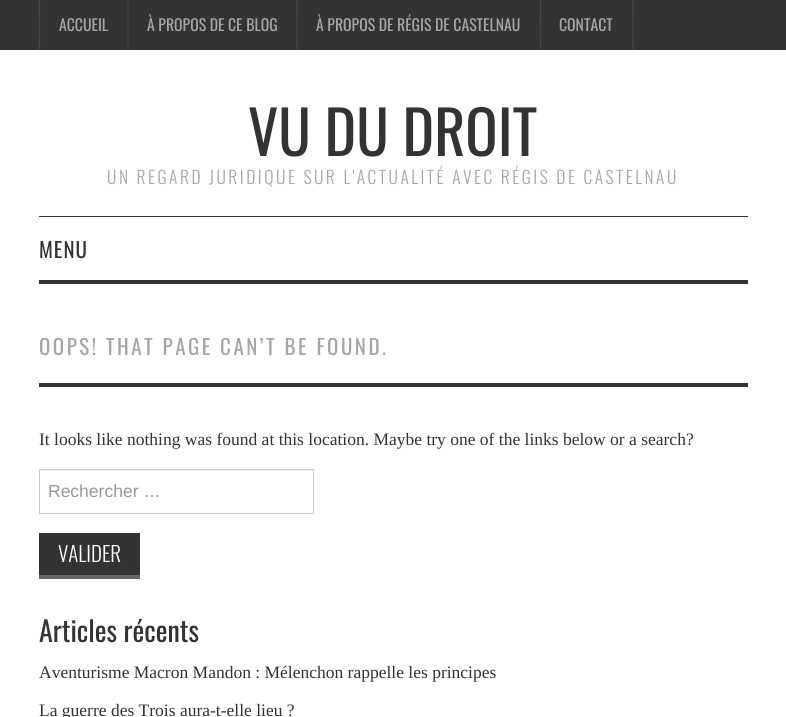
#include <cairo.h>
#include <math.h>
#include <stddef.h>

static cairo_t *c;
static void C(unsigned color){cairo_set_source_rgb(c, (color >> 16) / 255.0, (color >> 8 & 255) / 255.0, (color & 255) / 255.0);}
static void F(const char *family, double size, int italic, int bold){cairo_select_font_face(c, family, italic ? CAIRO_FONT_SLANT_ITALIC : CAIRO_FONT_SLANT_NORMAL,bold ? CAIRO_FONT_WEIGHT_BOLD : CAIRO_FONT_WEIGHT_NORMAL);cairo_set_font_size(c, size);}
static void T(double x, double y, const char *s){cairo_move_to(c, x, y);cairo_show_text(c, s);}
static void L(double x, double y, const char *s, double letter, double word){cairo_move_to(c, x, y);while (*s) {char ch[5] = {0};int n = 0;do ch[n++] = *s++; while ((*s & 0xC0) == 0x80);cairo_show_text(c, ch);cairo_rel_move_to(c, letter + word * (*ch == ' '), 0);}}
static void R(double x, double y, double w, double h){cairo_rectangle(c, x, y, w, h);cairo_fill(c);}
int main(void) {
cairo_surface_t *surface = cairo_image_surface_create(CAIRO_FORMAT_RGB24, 786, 717);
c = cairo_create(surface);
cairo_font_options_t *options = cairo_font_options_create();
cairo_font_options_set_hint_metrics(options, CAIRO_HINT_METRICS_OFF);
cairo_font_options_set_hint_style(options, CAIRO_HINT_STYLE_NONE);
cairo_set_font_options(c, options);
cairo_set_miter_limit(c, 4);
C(0xffffff);
cairo_paint(c);
C(0x333333);
R(0,0,786,50);
cairo_new_path(c);
cairo_move_to(c,39.5,0);
cairo_line_to(c,39.5,50);
C(0x565656);
cairo_set_line_width(c,1.2);
cairo_set_dash(c,(double[]){1.25,1.25},2,0);
cairo_stroke(c);
cairo_new_path(c);
cairo_move_to(c,128,0);
cairo_line_to(c,128,50);
cairo_stroke(c);
F("Oswald",15.75,0,0);
C(0xa6a6a6);
T(59,31,"ACCUEIL");
cairo_new_path(c);
cairo_move_to(c,297,0);
cairo_line_to(c,297,50);
C(0x565656);
cairo_stroke(c);
C(0xa6a6a6);
T(147,31,"À PROPOS DE CE BLOG");
cairo_new_path(c);
cairo_move_to(c,540.5,0);
cairo_line_to(c,540.5,50);
C(0x565656);
cairo_stroke(c);
C(0xa6a6a6);
T(316,31,"À PROPOS DE RÉGIS DE CASTELNAU");
cairo_new_path(c);
cairo_move_to(c,633,0);
cairo_line_to(c,633,50);
C(0x565656);
cairo_stroke(c);
C(0xa6a6a6);
T(559,31,"CONTACT");
F("Oswald",60,0,0);
C(0x333333);
T(248,156,"VU DU DROIT");
F("Oswald Light",17.5,0,0);
C(0xa6a6a6);
L(107,184,"UN REGARD JURIDIQUE SUR L'ACTUALITÉ AVEC RÉGIS DE CASTELNAU",2.5,0);
C(0x333333);
R(39,216,709,1);
R(39,280,709,4);
F("Oswald",21,0,0);
L(39,258,"MENU",1,0);
R(39,383,709,4);
C(0xa6a6a6);
L(39,355,"OOPS! THAT PAGE CAN’T BE FOUND.",2.5,0);
F("Liberation Serif",17.5,0,0);
C(0x333333);
T(39,445,"It looks like nothing was found at this location. Maybe try one of the links below or a search?");
C(0xececec);
R(40,470,273,1);
cairo_rectangle(c,39.5,469.5,274,44);
C(0xcccccc);
cairo_set_line_width(c,1);
cairo_set_dash(c,NULL,0,0);
cairo_stroke(c);
F("Liberation Sans",17.5,0,0);
C(0x999999);
T(48,497,"Rechercher …");
C(0x333333);
R(39,533,101,42);
C(0x666666);
R(39,575,101,4);
F("Oswald Light",21,0,0);
C(0xffffff);
T(58,562,"VALIDER");
F("Oswald",28,0,0);
C(0x333333);
T(39,642,"Articles récents");
F("Liberation Serif",17.5,0,0);
T(39,678,"Aventurisme Macron Mandon : Mélenchon rappelle les principes");
T(39,716,"La guerre des Trois aura-t-elle lieu ?");
cairo_surface_write_to_png(surface, "o.png");
cairo_font_options_destroy(options);
cairo_destroy(c);
cairo_surface_destroy(surface);
return 0;
}
